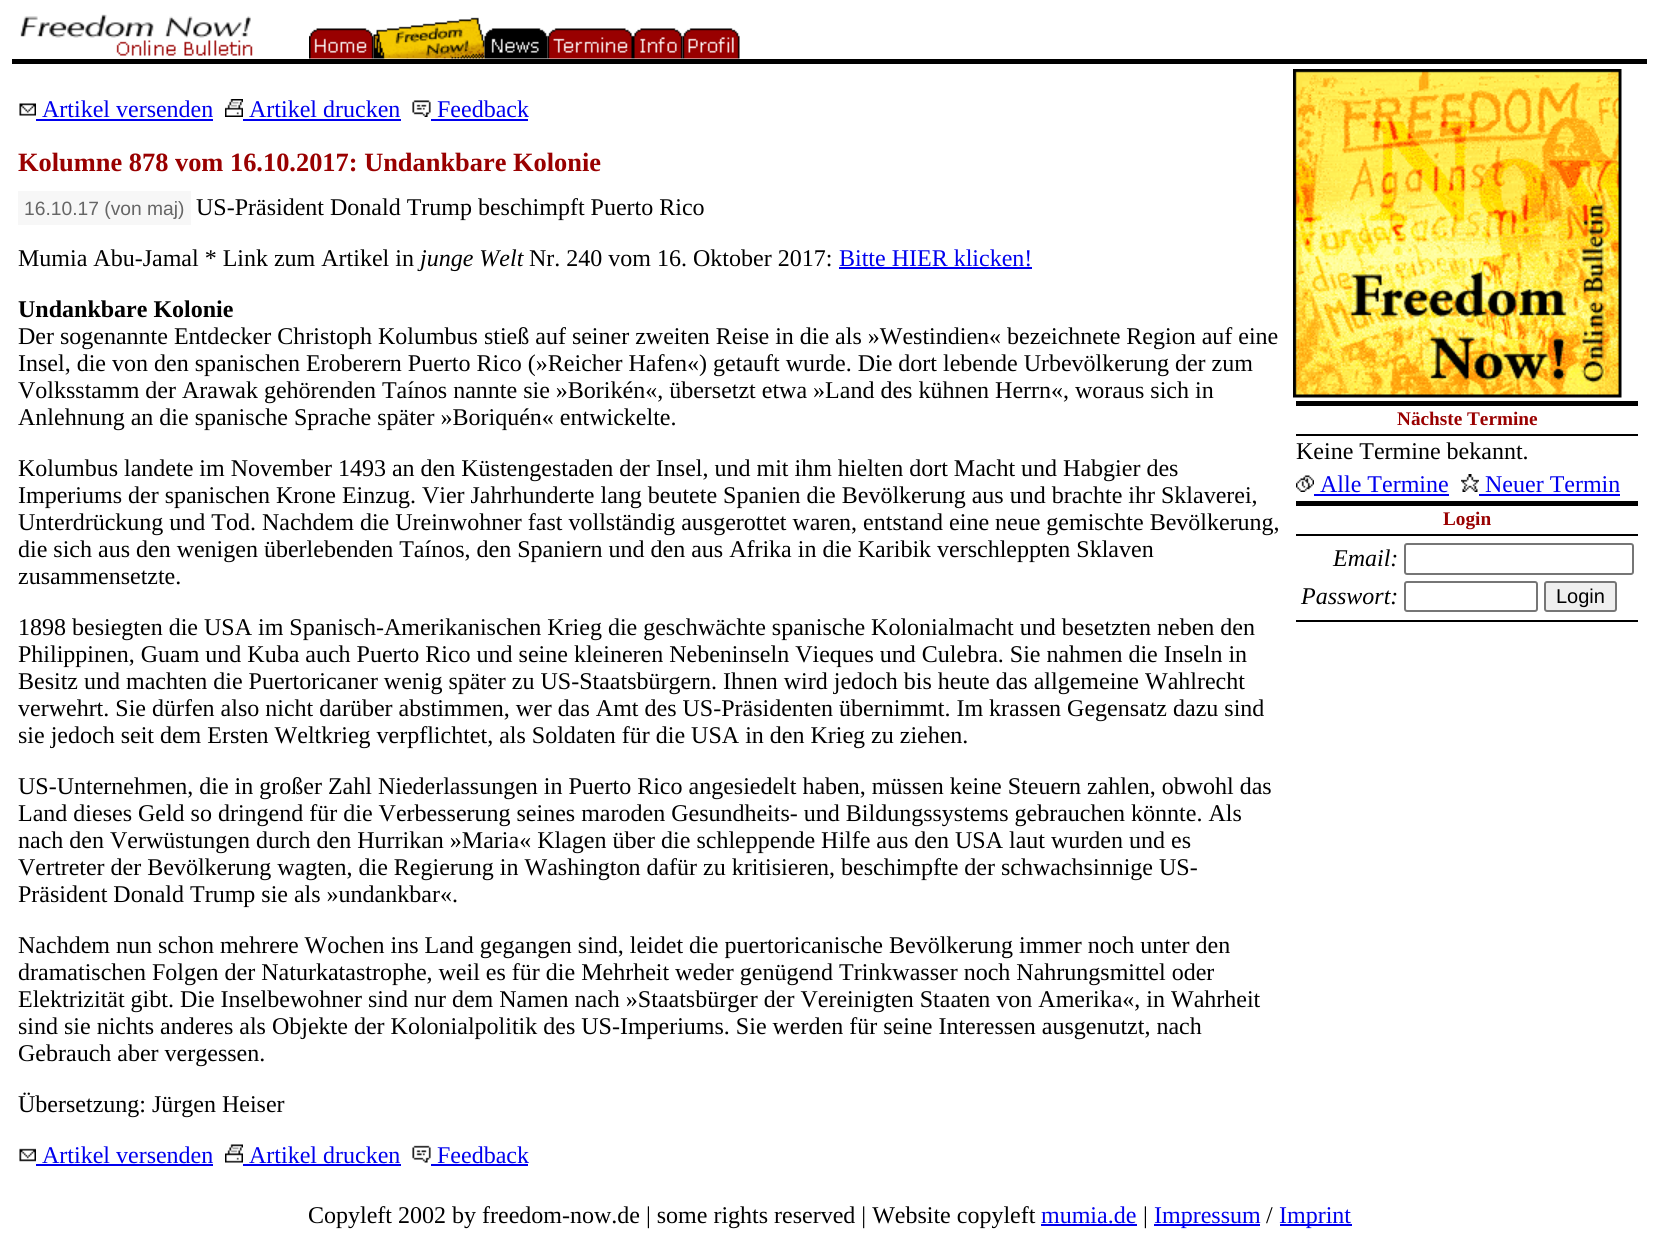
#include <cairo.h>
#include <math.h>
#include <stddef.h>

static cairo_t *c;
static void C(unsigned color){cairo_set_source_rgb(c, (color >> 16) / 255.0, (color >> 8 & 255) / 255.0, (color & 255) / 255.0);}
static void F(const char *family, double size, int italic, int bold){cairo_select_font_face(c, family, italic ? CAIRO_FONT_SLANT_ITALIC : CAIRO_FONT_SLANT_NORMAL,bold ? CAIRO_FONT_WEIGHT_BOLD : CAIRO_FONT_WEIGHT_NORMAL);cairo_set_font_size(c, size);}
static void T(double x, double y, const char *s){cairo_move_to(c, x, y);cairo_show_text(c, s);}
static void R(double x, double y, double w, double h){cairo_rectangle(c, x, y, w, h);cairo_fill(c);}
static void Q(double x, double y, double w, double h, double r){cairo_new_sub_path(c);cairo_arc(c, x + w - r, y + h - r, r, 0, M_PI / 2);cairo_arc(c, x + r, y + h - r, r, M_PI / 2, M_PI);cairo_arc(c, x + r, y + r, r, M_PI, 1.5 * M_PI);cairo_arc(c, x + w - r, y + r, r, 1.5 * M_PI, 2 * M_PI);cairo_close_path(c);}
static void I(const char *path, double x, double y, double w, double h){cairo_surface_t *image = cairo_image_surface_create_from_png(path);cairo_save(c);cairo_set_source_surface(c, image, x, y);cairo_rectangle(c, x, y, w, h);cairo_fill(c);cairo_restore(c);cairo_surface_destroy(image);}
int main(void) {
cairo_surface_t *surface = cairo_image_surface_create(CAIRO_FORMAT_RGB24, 1658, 1255);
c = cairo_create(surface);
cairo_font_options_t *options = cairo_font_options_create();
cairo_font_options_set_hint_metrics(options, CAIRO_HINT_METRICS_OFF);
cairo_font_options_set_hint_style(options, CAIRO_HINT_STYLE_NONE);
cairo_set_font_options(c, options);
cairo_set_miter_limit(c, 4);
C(0xffffff);
cairo_paint(c);
I("1.png",20,14,233,42);
I("2.png",309,28,65,31);
I("3.png",373,17,112,42);
I("4.png",484,28,64,31);
I("5.png",547,28,86,31);
I("6.png",633,28,50,31);
I("7.png",682,28,58,31);
C(0x000000);
R(12,59,1635,5);
I("8.png",19,103,17,13);
F("Liberation Serif",24,0,0);
C(0x0000ee);
T(42,117,"Artikel versenden");
R(36,119,177,2);
I("9.png",225,99,18,18);
T(249,117,"Artikel drucken");
R(243,119,158,2);
I("10.png",412,100,19,17);
T(437,117,"Feedback");
R(431,119,97,2);
F("Liberation Serif",26.4,0,1);
C(0x990000);
T(18,171,"Kolumne 878 vom 16.10.2017: Undankbare Kolonie");
C(0xf7f7f7);
R(18,191,173,34);
F("Liberation Sans",19.25,0,0);
C(0x666666);
T(24,215,"16.10.17 (von maj)");
F("Liberation Serif",24,0,0);
C(0x000000);
T(196,215,"US-Präsident Donald Trump beschimpft Puerto Rico");
T(18,266,"Mumia Abu-Jamal * Link zum Artikel in");
F("Liberation Serif",24,1,0);
T(420,266,"junge Welt");
F("Liberation Serif",24,0,0);
T(529,266,"Nr. 240 vom 16. Oktober 2017:");
C(0x0000ee);
T(839,266,"Bitte HIER klicken!");
R(839,267,193,2);
F("Liberation Serif",24,0,1);
C(0x000000);
T(18,317,"Undankbare Kolonie");
F("Liberation Serif",24,0,0);
T(18,344,"Der sogenannte Entdecker Christoph Kolumbus stieß auf seiner zweiten Reise in die als »Westindien« bezeichnete Region auf eine");
T(18,371,"Insel, die von den spanischen Eroberern Puerto Rico (»Reicher Hafen«) getauft wurde. Die dort lebende Urbevölkerung der zum");
T(18,398,"Volksstamm der Arawak gehörenden Taínos nannte sie »Borikén«, übersetzt etwa »Land des kühnen Herrn«, woraus sich in");
T(18,425,"Anlehnung an die spanische Sprache später »Boriquén« entwickelte.");
T(18,476,"Kolumbus landete im November 1493 an den Küstengestaden der Insel, und mit ihm hielten dort Macht und Habgier des");
T(18,503,"Imperiums der spanischen Krone Einzug. Vier Jahrhunderte lang beutete Spanien die Bevölkerung aus und brachte ihr Sklaverei,");
T(18,530,"Unterdrückung und Tod. Nachdem die Ureinwohner fast vollständig ausgerottet waren, entstand eine neue gemischte Bevölkerung,");
T(18,557,"die sich aus den wenigen überlebenden Taínos, den Spaniern und den aus Afrika in die Karibik verschleppten Sklaven");
T(18,584,"zusammensetzte.");
T(18,635,"1898 besiegten die USA im Spanisch-Amerikanischen Krieg die geschwächte spanische Kolonialmacht und besetzten neben den");
T(18,662,"Philippinen, Guam und Kuba auch Puerto Rico und seine kleineren Nebeninseln Vieques und Culebra. Sie nahmen die Inseln in");
T(18,689,"Besitz und machten die Puertoricaner wenig später zu US-Staatsbürgern. Ihnen wird jedoch bis heute das allgemeine Wahlrecht");
T(18,716,"verwehrt. Sie dürfen also nicht darüber abstimmen, wer das Amt des US-Präsidenten übernimmt. Im krassen Gegensatz dazu sind");
T(18,743,"sie jedoch seit dem Ersten Weltkrieg verpflichtet, als Soldaten für die USA in den Krieg zu ziehen.");
T(18,794,"US-Unternehmen, die in großer Zahl Niederlassungen in Puerto Rico angesiedelt haben, müssen keine Steuern zahlen, obwohl das");
T(18,821,"Land dieses Geld so dringend für die Verbesserung seines maroden Gesundheits- und Bildungssystems gebrauchen könnte. Als");
T(18,848,"nach den Verwüstungen durch den Hurrikan »Maria« Klagen über die schleppende Hilfe aus den USA laut wurden und es");
T(18,875,"Vertreter der Bevölkerung wagten, die Regierung in Washington dafür zu kritisieren, beschimpfte der schwachsinnige US-");
T(18,902,"Präsident Donald Trump sie als »undankbar«.");
T(18,953,"Nachdem nun schon mehrere Wochen ins Land gegangen sind, leidet die puertoricanische Bevölkerung immer noch unter den");
T(18,980,"dramatischen Folgen der Naturkatastrophe, weil es für die Mehrheit weder genügend Trinkwasser noch Nahrungsmittel oder");
T(18,1007,"Elektrizität gibt. Die Inselbewohner sind nur dem Namen nach »Staatsbürger der Vereinigten Staaten von Amerika«, in Wahrheit");
T(18,1034,"sind sie nichts anderes als Objekte der Kolonialpolitik des US-Imperiums. Sie werden für seine Interessen ausgenutzt, nach");
T(18,1061,"Gebrauch aber vergessen.");
T(18,1112,"Übersetzung: Jürgen Heiser");
I("11.png",19,1148,17,14);
C(0x0000ee);
T(42,1163,"Artikel versenden");
R(36,1164,177,2);
I("12.png",225,1144,18,19);
T(249,1163,"Artikel drucken");
R(243,1164,158,2);
I("13.png",412,1145,19,18);
T(437,1163,"Feedback");
R(431,1164,97,2);
I("14.png",1293,69,329,329);
C(0x000000);
R(1296,401,342,5);
F("Liberation Serif",19.25,0,1);
C(0x990000);
T(1397,425,"Nächste Termine");
C(0x000000);
R(1296,434,342,2);
F("Liberation Serif",24,0,0);
T(1296,459,"Keine Termine bekannt.");
I("15.png",1296,475,18,17);
C(0x0000ee);
T(1320,492,"Alle Termine");
R(1314,494,135,2);
I("16.png",1461,474,18,18);
T(1485,492,"Neuer Termin");
R(1479,494,141,2);
C(0x000000);
R(1296,501,342,5);
F("Liberation Serif",19.25,0,1);
C(0x990000);
T(1443,525,"Login");
C(0x000000);
R(1296,534,342,2);
F("Liberation Serif",24,1,0);
T(1333,566,"Email:");
Q(1405,544,228,30,2);
C(0x767676);
cairo_stroke(c);
C(0x000000);
T(1301,604,"Passwort:");
Q(1405,582,132,29,2);
C(0x767676);
cairo_stroke(c);
C(0xefefef);
Q(1545,582,71,29,2);
cairo_fill_preserve(c);
C(0x767676);
cairo_stroke(c);
F("Liberation Sans",20,0,0);
C(0x000000);
T(1556,603,"Login");
R(1296,620,342,2);
F("Liberation Serif",24,0,0);
T(308,1223,"Copyleft 2002 by freedom-now.de | some rights reserved | Website copyleft");
C(0x0000ee);
T(1041,1223,"mumia.de");
R(1041,1224,96,2);
C(0x000000);
T(1143,1223,"|");
C(0x0000ee);
R(1154,1224,106,2);
T(1154,1223,"Impressum");
C(0x000000);
T(1266,1223,"/");
C(0x0000ee);
R(1280,1224,72,2);
T(1279,1223,"Imprint");
cairo_surface_write_to_png(surface, "o.png");
cairo_font_options_destroy(options);
cairo_destroy(c);
cairo_surface_destroy(surface);
return 0;
}
